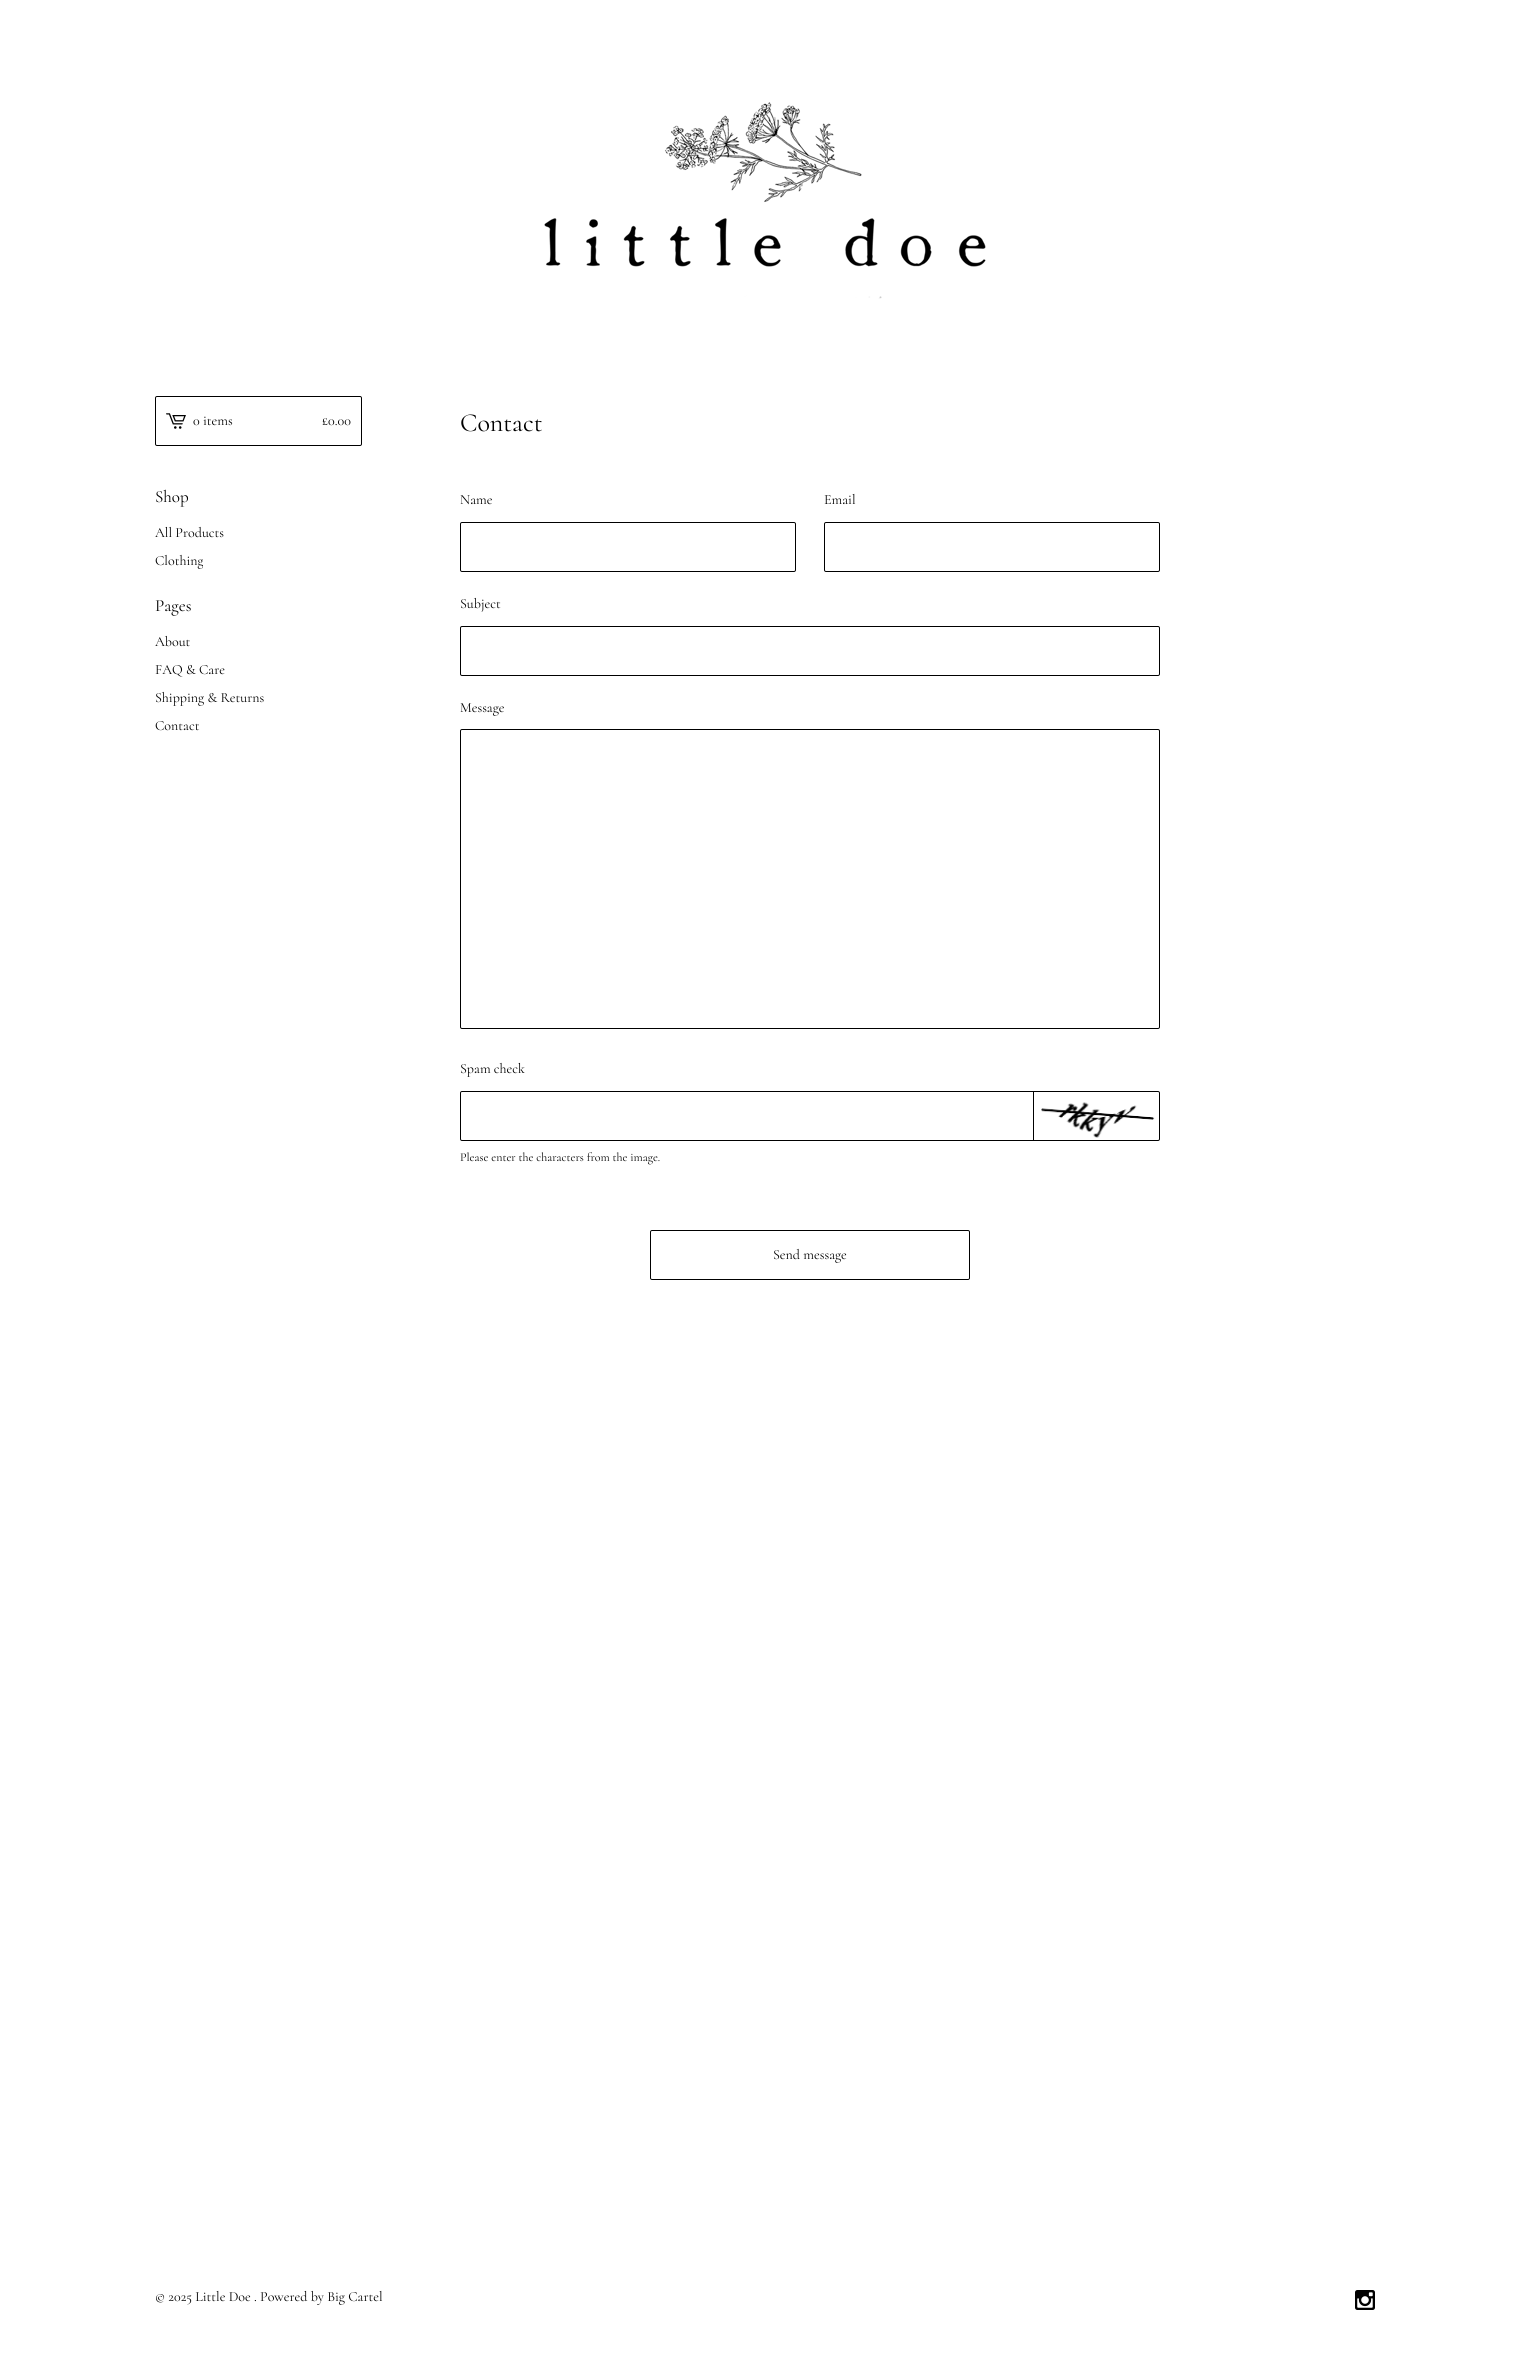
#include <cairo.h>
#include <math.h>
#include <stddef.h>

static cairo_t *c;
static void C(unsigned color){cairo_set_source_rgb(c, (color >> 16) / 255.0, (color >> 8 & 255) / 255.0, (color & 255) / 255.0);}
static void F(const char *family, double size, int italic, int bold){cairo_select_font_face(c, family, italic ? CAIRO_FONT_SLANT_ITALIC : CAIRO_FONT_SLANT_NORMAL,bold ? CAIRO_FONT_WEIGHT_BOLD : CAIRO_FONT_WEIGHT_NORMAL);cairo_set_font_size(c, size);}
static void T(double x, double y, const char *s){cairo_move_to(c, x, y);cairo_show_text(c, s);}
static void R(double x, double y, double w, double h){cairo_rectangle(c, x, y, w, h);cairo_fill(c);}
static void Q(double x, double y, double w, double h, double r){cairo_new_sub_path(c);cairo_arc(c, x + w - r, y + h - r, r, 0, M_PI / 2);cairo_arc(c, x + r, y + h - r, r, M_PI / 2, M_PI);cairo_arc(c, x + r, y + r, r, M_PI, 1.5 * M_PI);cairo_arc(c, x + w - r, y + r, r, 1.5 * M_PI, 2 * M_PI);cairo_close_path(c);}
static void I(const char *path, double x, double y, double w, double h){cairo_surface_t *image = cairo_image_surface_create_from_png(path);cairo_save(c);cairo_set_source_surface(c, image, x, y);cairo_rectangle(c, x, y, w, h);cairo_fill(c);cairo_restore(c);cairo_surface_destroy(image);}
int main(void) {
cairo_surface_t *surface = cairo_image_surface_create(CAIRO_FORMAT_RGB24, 1529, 2361);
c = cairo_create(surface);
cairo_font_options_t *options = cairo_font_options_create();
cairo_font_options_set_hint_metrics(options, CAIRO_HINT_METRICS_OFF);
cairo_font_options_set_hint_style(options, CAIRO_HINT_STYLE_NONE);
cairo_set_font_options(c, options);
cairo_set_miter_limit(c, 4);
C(0xffffff);
cairo_paint(c);
I("1.png",544,102,442,197);
Q(155.5,396.5,206,49,1.5);
C(0x000000);
cairo_set_line_width(c,1);
cairo_stroke(c);
I("2.png",166,413,20,16);
F("Cormorant",14,0,0);
T(193,425,"0 items");
T(322,425,"£0.00");
F("Cormorant",17,0,0);
T(155,502,"Shop");
F("Cormorant",14,0,0);
T(155,537,"All Products");
T(155,565,"Clothing");
F("Cormorant",17,0,0);
T(155,611,"Pages");
F("Cormorant",14,0,0);
T(155,646,"About");
T(155,674,"FAQ & Care");
T(155,702,"Shipping & Returns");
T(155,730,"Contact");
F("Cormorant",26,0,0);
T(460,431,"Contact");
F("Cormorant",14,0,0);
T(460,504,"Name");
Q(460.5,522.5,335,49,1.5);
cairo_stroke(c);
T(824,504,"Email");
Q(824.5,522.5,335,49,1.5);
cairo_stroke(c);
T(460,608,"Subject");
Q(460.5,626.5,699,49,1.5);
cairo_stroke(c);
T(460,712,"Message");
Q(460.5,729.5,699,299,1.5);
cairo_stroke(c);
T(460,1073,"Spam check");
Q(460.5,1091.5,699,49,1.5);
cairo_stroke(c);
R(1033,1092,1,48);
I("3.png",1041,1102,114,36);
F("Cormorant",12,0,0);
T(460,1161,"Please enter the characters from the image.");
Q(650.5,1230.5,319,49,1.5);
cairo_stroke(c);
F("Cormorant",14,0,0);
T(773,1259,"Send message");
T(155,2301,"© 2025 Little Doe . Powered by Big Cartel");
I("4.png",1355,2290,20,20);
cairo_surface_write_to_png(surface, "o.png");
cairo_font_options_destroy(options);
cairo_destroy(c);
cairo_surface_destroy(surface);
return 0;
}
